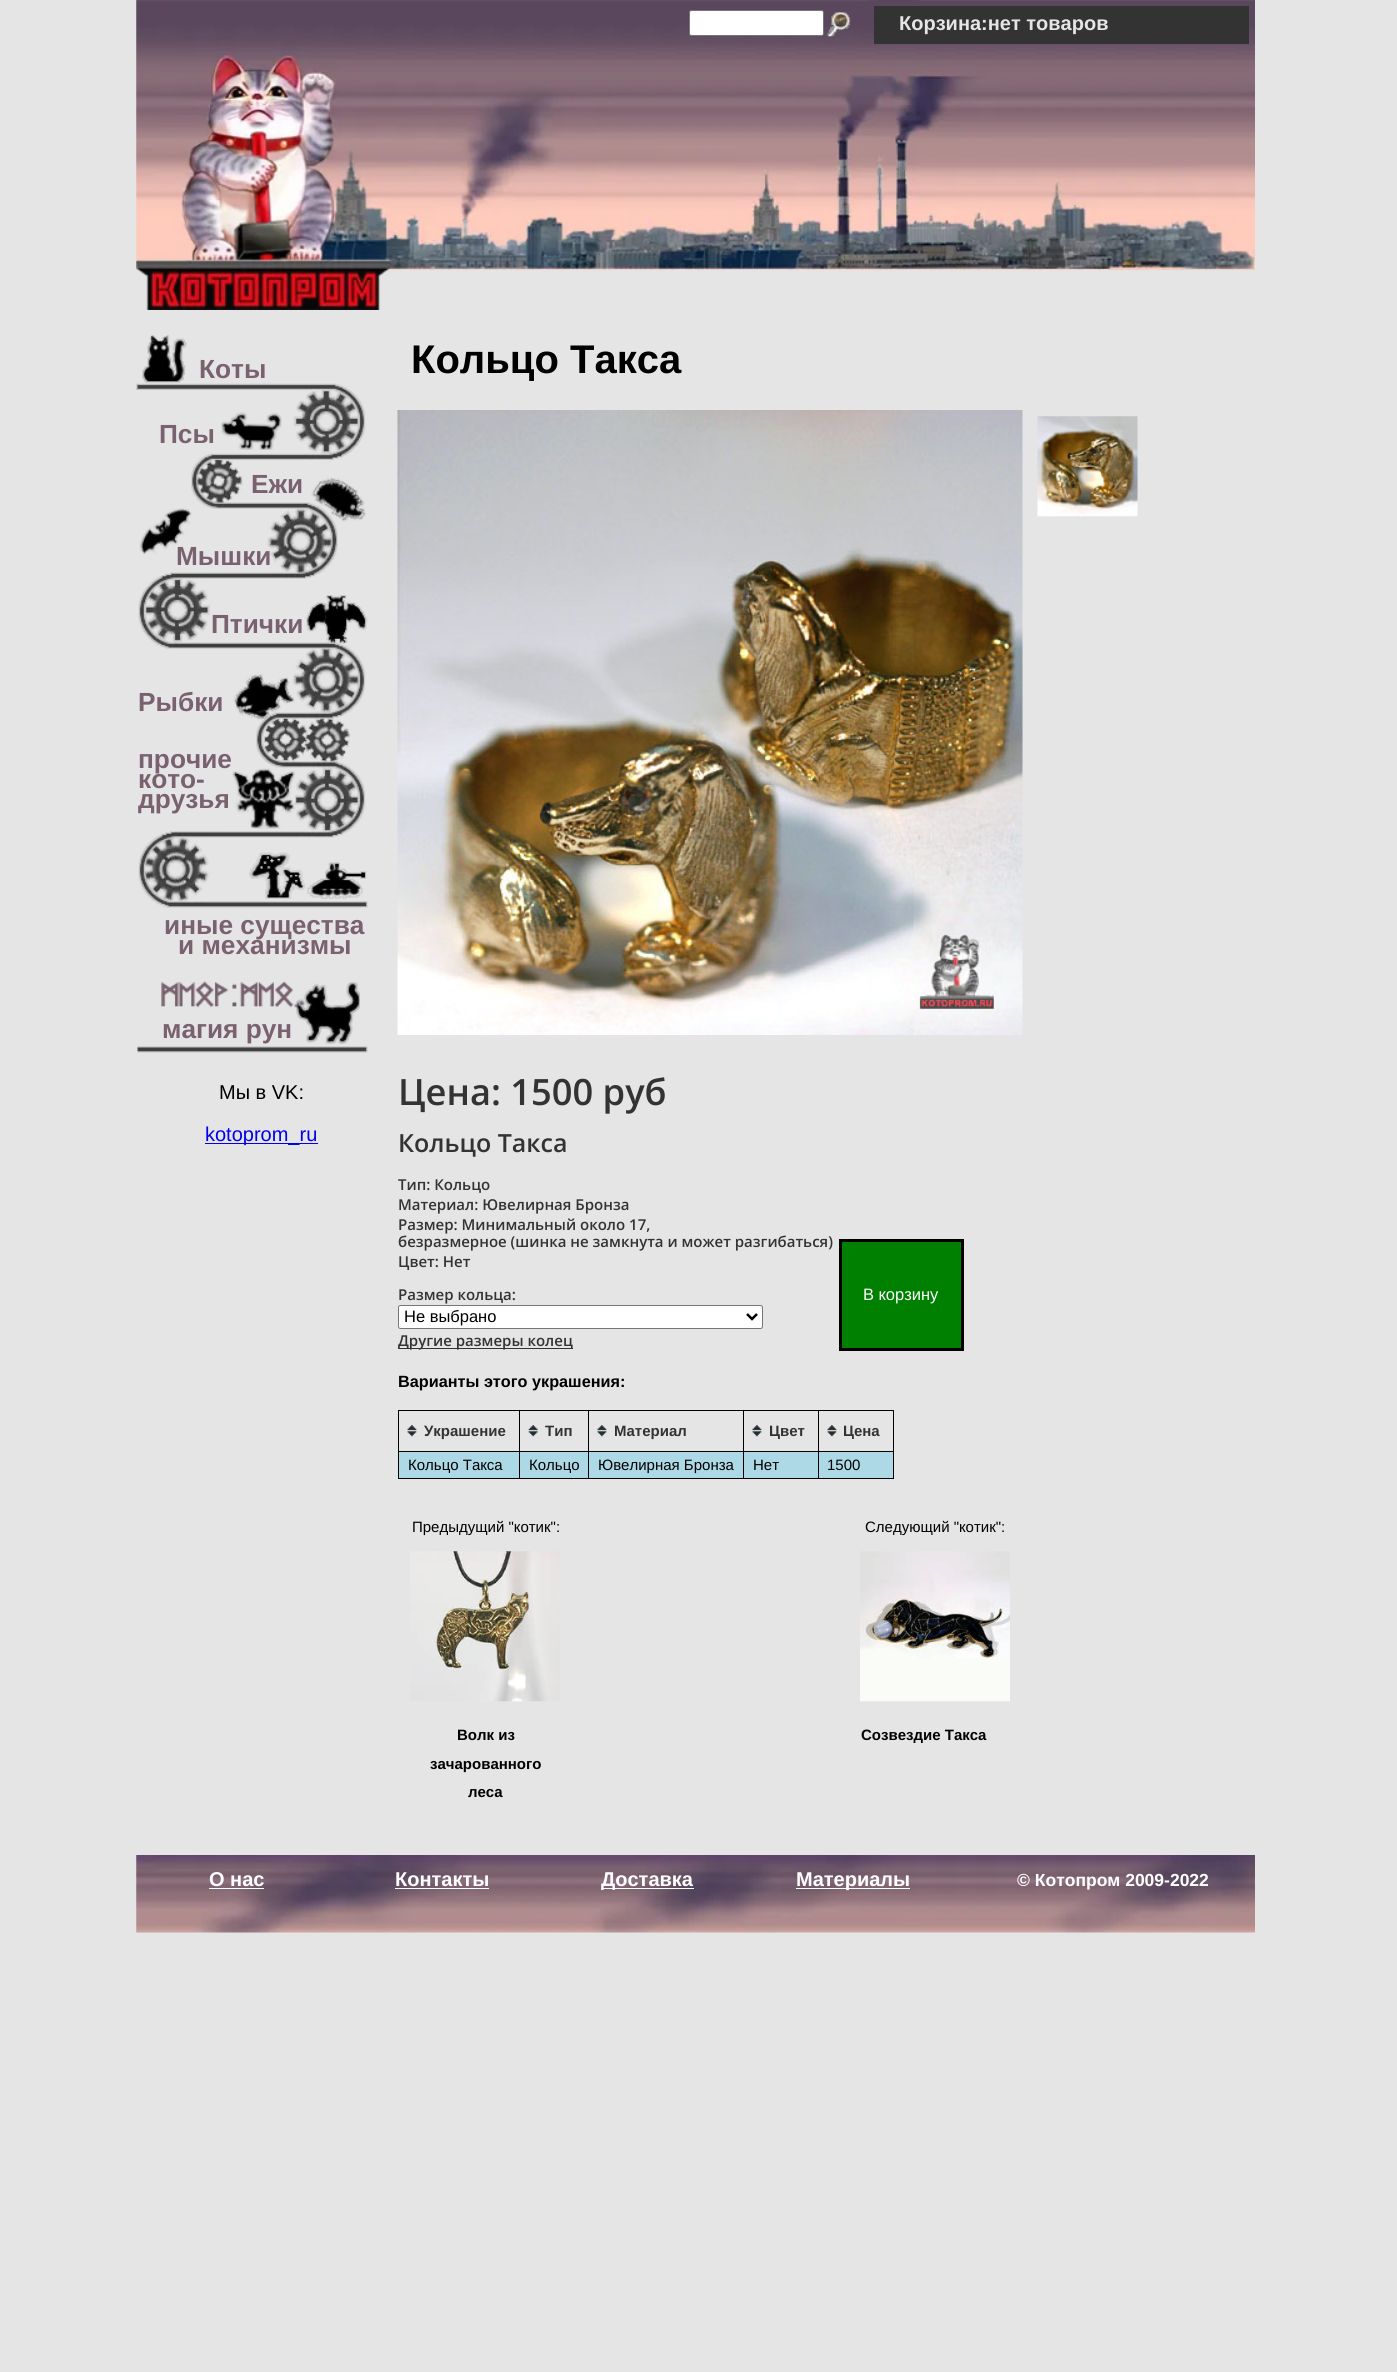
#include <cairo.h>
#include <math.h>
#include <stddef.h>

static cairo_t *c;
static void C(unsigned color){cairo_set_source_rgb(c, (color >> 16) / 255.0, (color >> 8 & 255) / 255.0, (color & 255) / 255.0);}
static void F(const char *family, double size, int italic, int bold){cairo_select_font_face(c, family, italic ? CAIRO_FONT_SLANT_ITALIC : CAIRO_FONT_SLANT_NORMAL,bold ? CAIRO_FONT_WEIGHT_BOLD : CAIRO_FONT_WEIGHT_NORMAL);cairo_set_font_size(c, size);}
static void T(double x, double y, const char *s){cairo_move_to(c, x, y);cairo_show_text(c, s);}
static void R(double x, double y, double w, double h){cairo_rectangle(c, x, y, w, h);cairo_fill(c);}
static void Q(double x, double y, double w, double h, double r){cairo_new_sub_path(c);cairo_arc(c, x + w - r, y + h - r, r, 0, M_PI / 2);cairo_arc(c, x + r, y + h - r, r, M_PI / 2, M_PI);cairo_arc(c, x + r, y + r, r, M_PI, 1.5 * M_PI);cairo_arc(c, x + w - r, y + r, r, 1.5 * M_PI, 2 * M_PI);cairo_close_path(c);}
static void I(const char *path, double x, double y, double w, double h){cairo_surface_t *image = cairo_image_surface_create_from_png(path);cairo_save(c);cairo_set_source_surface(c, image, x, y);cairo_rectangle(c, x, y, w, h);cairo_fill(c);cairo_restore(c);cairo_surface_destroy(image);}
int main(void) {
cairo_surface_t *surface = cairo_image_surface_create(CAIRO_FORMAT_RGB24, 1397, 2372);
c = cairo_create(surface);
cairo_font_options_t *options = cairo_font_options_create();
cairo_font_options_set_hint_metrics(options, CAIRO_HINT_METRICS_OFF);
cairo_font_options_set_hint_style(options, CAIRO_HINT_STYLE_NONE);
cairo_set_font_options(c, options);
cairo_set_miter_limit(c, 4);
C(0xe5e5e5);
cairo_paint(c);
I("1.png",136,0,1119,310);
C(0xffffff);
Q(689.5,10.5,134,25,2);
cairo_fill_preserve(c);
C(0x767676);
cairo_set_line_width(c,1);
cairo_stroke(c);
I("2.png",827,12,24,25);
C(0x333333);
R(874,6,375,38);
F("Liberation Sans",20,0,1);
C(0xe5e5e5);
T(899,30,"Корзина:нет товаров");
I("3.png",136,383,232,670);
I("4.png",142,335,45,48);
F("Liberation Sans",26.25,0,1);
C(0x79616f);
T(199,378,"Коты");
T(159,443,"Псы");
I("5.png",221,412,61,38);
T(251,493,"Ежи");
I("6.png",311,477,55,45);
T(176,565,"Мышки");
I("7.png",139,508,53,47);
T(211,633,"Птички");
I("8.png",306,595,62,49);
T(138,711,"Рыбки");
I("9.png",233,674,62,46);
T(138,768,"прочие");
T(138,788,"кото-");
I("10.png",232,768,64,61);
T(138,808,"друзья");
I("11.png",249,852,118,47);
T(164,934,"иные существа");
T(178,954,"и механизмы");
T(162,1038,"магия рун");
I("12.png",161,981,199,63);
F("Liberation Sans",20,0,0);
C(0x000000);
T(219,1099,"Мы в VK:");
C(0x0000ee);
R(205,1143,113,1);
T(205,1141,"kotoprom_ru");
F("Liberation Sans",40,0,1);
C(0x000000);
T(411,373,"Кольцо Такса");
I("13.png",397,410,626,625);
I("14.png",1037,416,101,101);
F("Open Sans SemiBold",36.25,0,0);
C(0x333333);
T(398,1105,"Цена: 1500 руб");
F("Open Sans SemiBold",25,0,0);
T(398,1152,"Кольцо Такса");
F("Open Sans SemiBold",15,0,0);
T(398,1190,"Тип: Кольцо");
T(398,1210,"Материал: Ювелирная Бронза");
T(398,1230,"Размер: Минимальный около 17,");
T(398,1247,"безразмерное (шинка не замкнута и может разгибаться)");
T(398,1267,"Цвет: Нет");
T(398,1300,"Размер кольца:");
C(0xffffff);
Q(398.5,1305.5,364,23,2);
cairo_fill_preserve(c);
C(0x767676);
cairo_stroke(c);
cairo_new_path(c);
cairo_move_to(c,747,1314);
cairo_line_to(c,752,1319);
cairo_line_to(c,757,1314);
C(0x000000);
cairo_set_line_width(c,2.5);
cairo_stroke(c);
F("Liberation Sans",16.5,0,0);
T(404,1322,"Не выбрано");
C(0x333333);
R(398,1348,175,1);
F("Open Sans SemiBold",15,0,0);
T(398,1346,"Другие размеры колец");
C(0x008000);
cairo_rectangle(c,840.5,1240.5,122,109);
cairo_fill_preserve(c);
C(0x000000);
cairo_set_line_width(c,3);
cairo_stroke(c);
F("Liberation Sans",16.5,0,0);
C(0xffffff);
T(863,1300,"В корзину");
F("Liberation Sans",16.25,0,1);
C(0x000000);
T(398,1387,"Варианты этого украшения:");
I("15.png",407,1425,10,12);
R(818,1410,76,1);
C(0xadd8e6);
R(399,1452,494,26);
C(0x000000);
R(818,1451,76,1);
R(893,1451,1,28);
R(818,1478,76,1);
R(818,1451,1,28);
R(743,1451,76,1);
R(818,1410,1,43);
R(743,1410,76,1);
R(743,1478,76,1);
R(743,1451,1,28);
R(588,1451,156,1);
R(743,1410,1,43);
R(588,1410,156,1);
R(588,1478,156,1);
R(588,1451,1,28);
R(519,1451,70,1);
R(588,1410,1,43);
R(519,1410,70,1);
R(519,1478,70,1);
R(519,1451,1,28);
R(398,1451,122,1);
R(519,1410,1,43);
R(398,1410,122,1);
R(398,1478,122,1);
R(398,1451,1,28);
R(398,1410,1,43);
F("Liberation Sans",15,0,1);
C(0x333333);
T(424,1436,"Украшение");
I("16.png",528,1425,10,12);
T(545,1436,"Тип");
I("17.png",597,1425,10,12);
T(614,1436,"Материал");
I("15.png",752,1425,10,12);
T(769,1436,"Цвет");
I("15.png",827,1425,10,12);
C(0x000000);
R(893,1410,1,43);
C(0x333333);
T(843,1436,"Цена");
F("Liberation Sans",15,0,0);
C(0x000000);
T(408,1470,"Кольцо Такса");
T(529,1470,"Кольцо");
T(598,1470,"Ювелирная Бронза");
T(753,1470,"Нет");
T(827,1470,"1500");
T(412,1532,"Предыдущий \"котик\":");
I("18.png",410,1551,150,151);
F("Liberation Sans",15,0,1);
T(457,1740,"Волк из");
T(430,1769,"зачарованного");
T(468,1797,"леса");
F("Liberation Sans",15,0,0);
T(865,1532,"Следующий \"котик\":");
I("19.png",860,1551,150,151);
F("Liberation Sans",15,0,1);
T(861,1740,"Созвездие Такса");
I("20.png",136,1855,1119,78);
F("Liberation Sans",20,0,1);
C(0xffffff);
T(209,1886,"О нас");
R(209,1888,55,1);
T(395,1886,"Контакты");
R(395,1888,94,1);
R(601,1888,93,1);
T(601,1886,"Доставка");
R(796,1888,114,1);
T(796,1886,"Материалы");
F("Liberation Sans",17.5,0,1);
T(1017,1886,"© Котопром 2009-2022");
cairo_surface_write_to_png(surface, "o.png");
cairo_font_options_destroy(options);
cairo_destroy(c);
cairo_surface_destroy(surface);
return 0;
}
